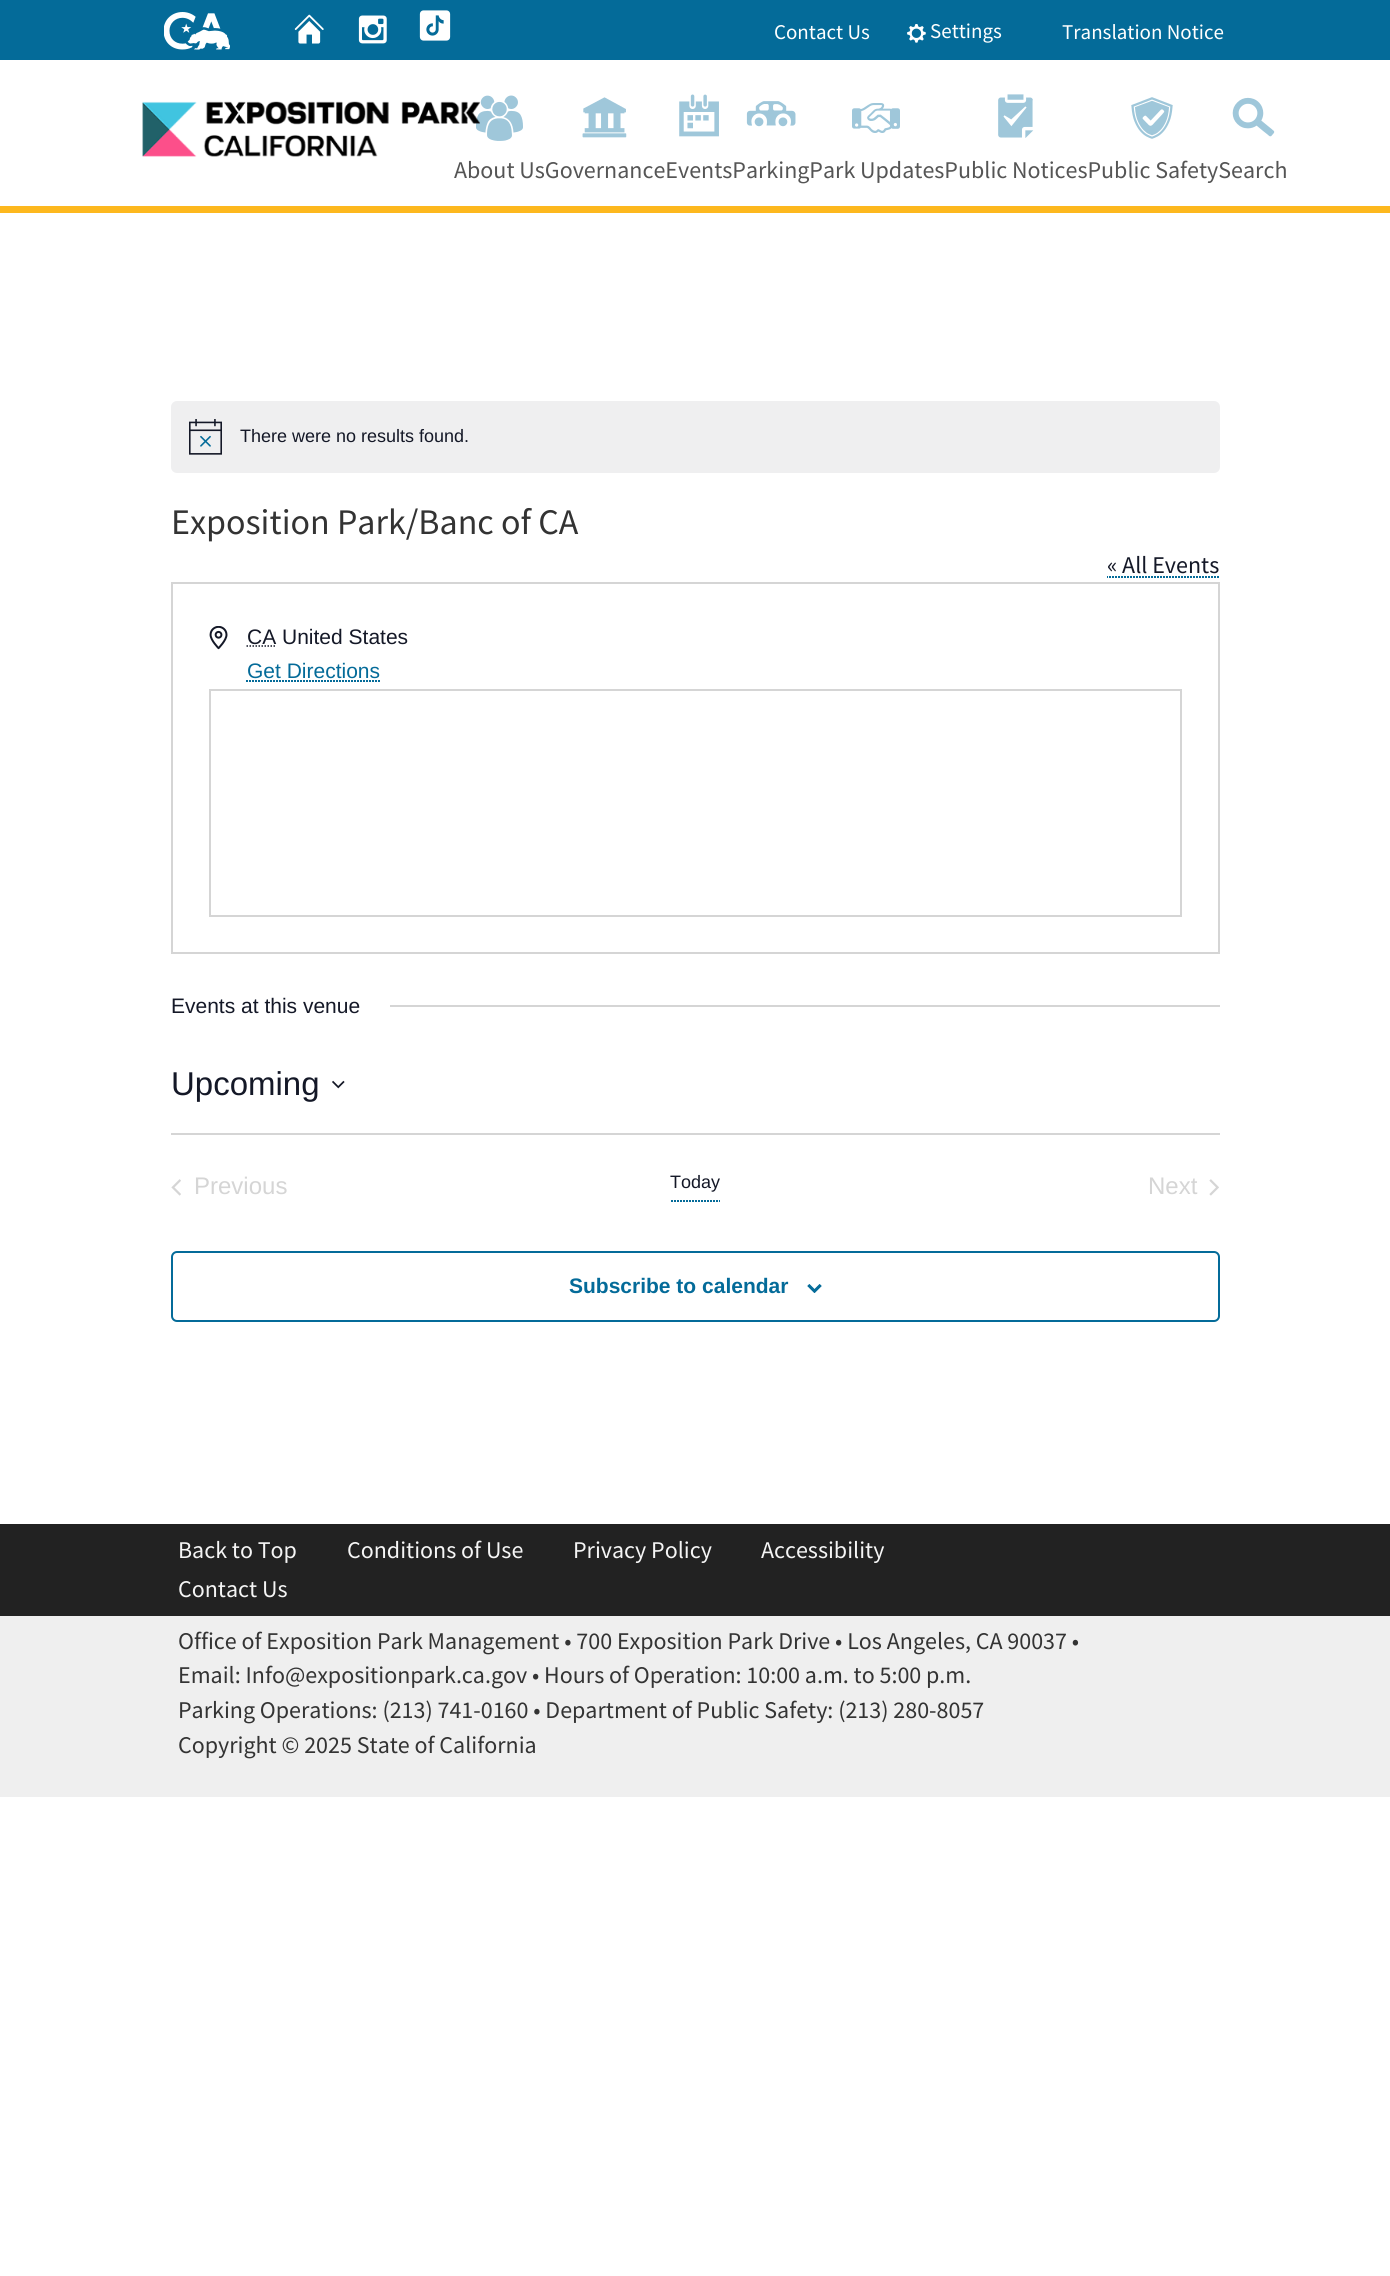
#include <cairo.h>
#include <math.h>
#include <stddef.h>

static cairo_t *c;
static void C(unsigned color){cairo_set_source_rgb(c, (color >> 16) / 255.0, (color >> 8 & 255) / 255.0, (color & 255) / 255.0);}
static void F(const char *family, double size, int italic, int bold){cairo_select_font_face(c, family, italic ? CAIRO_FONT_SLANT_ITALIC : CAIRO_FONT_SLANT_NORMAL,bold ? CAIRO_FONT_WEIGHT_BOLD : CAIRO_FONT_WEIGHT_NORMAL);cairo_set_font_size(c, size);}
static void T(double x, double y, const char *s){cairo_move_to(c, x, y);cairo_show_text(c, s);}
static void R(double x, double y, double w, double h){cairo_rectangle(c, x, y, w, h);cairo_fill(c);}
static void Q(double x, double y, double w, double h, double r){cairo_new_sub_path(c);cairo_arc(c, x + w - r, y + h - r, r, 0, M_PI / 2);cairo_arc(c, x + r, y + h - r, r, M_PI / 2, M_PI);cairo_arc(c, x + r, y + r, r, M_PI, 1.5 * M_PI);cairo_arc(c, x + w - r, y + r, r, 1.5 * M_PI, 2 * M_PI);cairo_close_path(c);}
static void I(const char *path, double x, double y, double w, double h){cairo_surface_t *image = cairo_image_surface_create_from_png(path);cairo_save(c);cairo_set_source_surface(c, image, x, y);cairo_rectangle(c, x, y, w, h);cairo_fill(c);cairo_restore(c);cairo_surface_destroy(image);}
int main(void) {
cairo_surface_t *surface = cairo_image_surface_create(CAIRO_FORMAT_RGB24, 1390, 2276);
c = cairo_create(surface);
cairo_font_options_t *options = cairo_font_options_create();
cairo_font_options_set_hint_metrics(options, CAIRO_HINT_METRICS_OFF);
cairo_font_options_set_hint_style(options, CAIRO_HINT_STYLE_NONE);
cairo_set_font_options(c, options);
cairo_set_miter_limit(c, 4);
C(0xffffff);
cairo_paint(c);
C(0x046b99);
R(0,0,1390,60);
I("1.png",164,12,66,38);
I("2.png",294,14,30,30);
I("3.png",358,15,29,29);
I("4.png",419,10,32,31);
F("Source Sans Pro",21,0,0);
C(0xffffff);
T(774,39,"Contact Us");
I("5.png",907,24,19,19);
T(930,38,"Settings");
T(1062,39,"Translation Notice");
I("14.png",476,95,47,46);
I("6.png",142,101,338,56);
C(0xfdb81e);
R(0,206,1390,7);
I("7.png",582,97,45,41);
I("8.png",679,94,40,43);
I("9.png",746,101,50,26);
I("10.png",852,103,48,30);
I("11.png",998,94,36,44);
I("12.png",1131,97,42,42);
I("13.png",1232,97,43,40);
F("Source Sans Pro",24,0,0);
C(0x555555);
T(454,178,"About UsGovernanceEventsParkingPark UpdatesPublic NoticesPublic SafetySearch");
C(0xefeff0);
Q(171,401,1049,72,6);
cairo_fill(c);
I("15.png",189,419,33,36);
F("Liberation Sans",18,0,0);
C(0x141827);
T(240,442,"There were no results found.");
F("Source Sans Pro",36,0,0);
C(0x333333);
T(171,534,"Exposition Park/Banc of CA");
F("Source Sans Pro",24,0,0);
C(0x141827);
T(1107,573,"« All Events");
I("16.png",1107,576,112,2);
cairo_rectangle(c,172,583,1047,370);
C(0xd5d5d5);
cairo_stroke(c);
I("17.png",209,626,19,24);
F("Liberation Sans",21,0,0);
C(0x141827);
T(247,644,"CA United States");
cairo_new_path(c);
cairo_move_to(c,246.5,646);
cairo_line_to(c,276,646);
cairo_set_line_width(c,1.5);
cairo_set_dash(c,(double[]){1.5,1.5},2,0);
cairo_stroke(c);
C(0x046b99);
T(247,678,"Get Directions");
I("18.png",246,680,134,2);
cairo_rectangle(c,210,690,971,226);
C(0xd5d5d5);
cairo_set_line_width(c,2);
cairo_set_dash(c,NULL,0,0);
cairo_stroke(c);
C(0x141827);
T(171,1013,"Events at this venue");
C(0xd5d5d5);
R(390,1005,830,2);
F("Liberation Sans",33,0,0);
C(0x141827);
T(171,1095,"Upcoming");
I("19.png",332,1080,13,9);
C(0xd5d5d5);
R(171,1133,1049,2);
I("20.png",171,1179,10,17);
F("Liberation Sans",24,0,0);
T(194,1194,"Previous");
I("21.png",671,1200,49,2);
F("Liberation Sans",18,0,0);
C(0x141827);
T(670,1188,"Today");
F("Liberation Sans",24,0,0);
C(0xd5d5d5);
T(1148,1194,"Next");
I("22.png",1209,1179,10,17);
Q(172,1252,1047,69,5);
C(0x046b99);
cairo_stroke(c);
F("Liberation Sans",21,0,1);
T(569,1293,"Subscribe to calendar");
I("23.png",807,1284,15,9);
C(0x222222);
R(0,1524,1390,92);
F("Source Sans Pro",24,0,0);
C(0xf5f5f5);
T(178,1558,"Back to Top");
T(347,1558,"Conditions of Use");
T(573,1558,"Privacy Policy");
T(761,1558,"Accessibility");
T(178,1597,"Contact Us");
C(0xefefef);
R(0,1616,1390,181);
C(0x333333);
T(178,1649,"Office of Exposition Park Management • 700 Exposition Park Drive • Los Angeles, CA 90037 •");
T(178,1683,"Email: Info@expositionpark.ca.gov • Hours of Operation: 10:00 a.m. to 5:00 p.m.");
T(178,1718,"Parking Operations: (213) 741-0160 • Department of Public Safety: (213) 280-8057");
T(178,1753,"Copyright © 2025 State of California");
cairo_surface_write_to_png(surface, "o.png");
cairo_font_options_destroy(options);
cairo_destroy(c);
cairo_surface_destroy(surface);
return 0;
}
